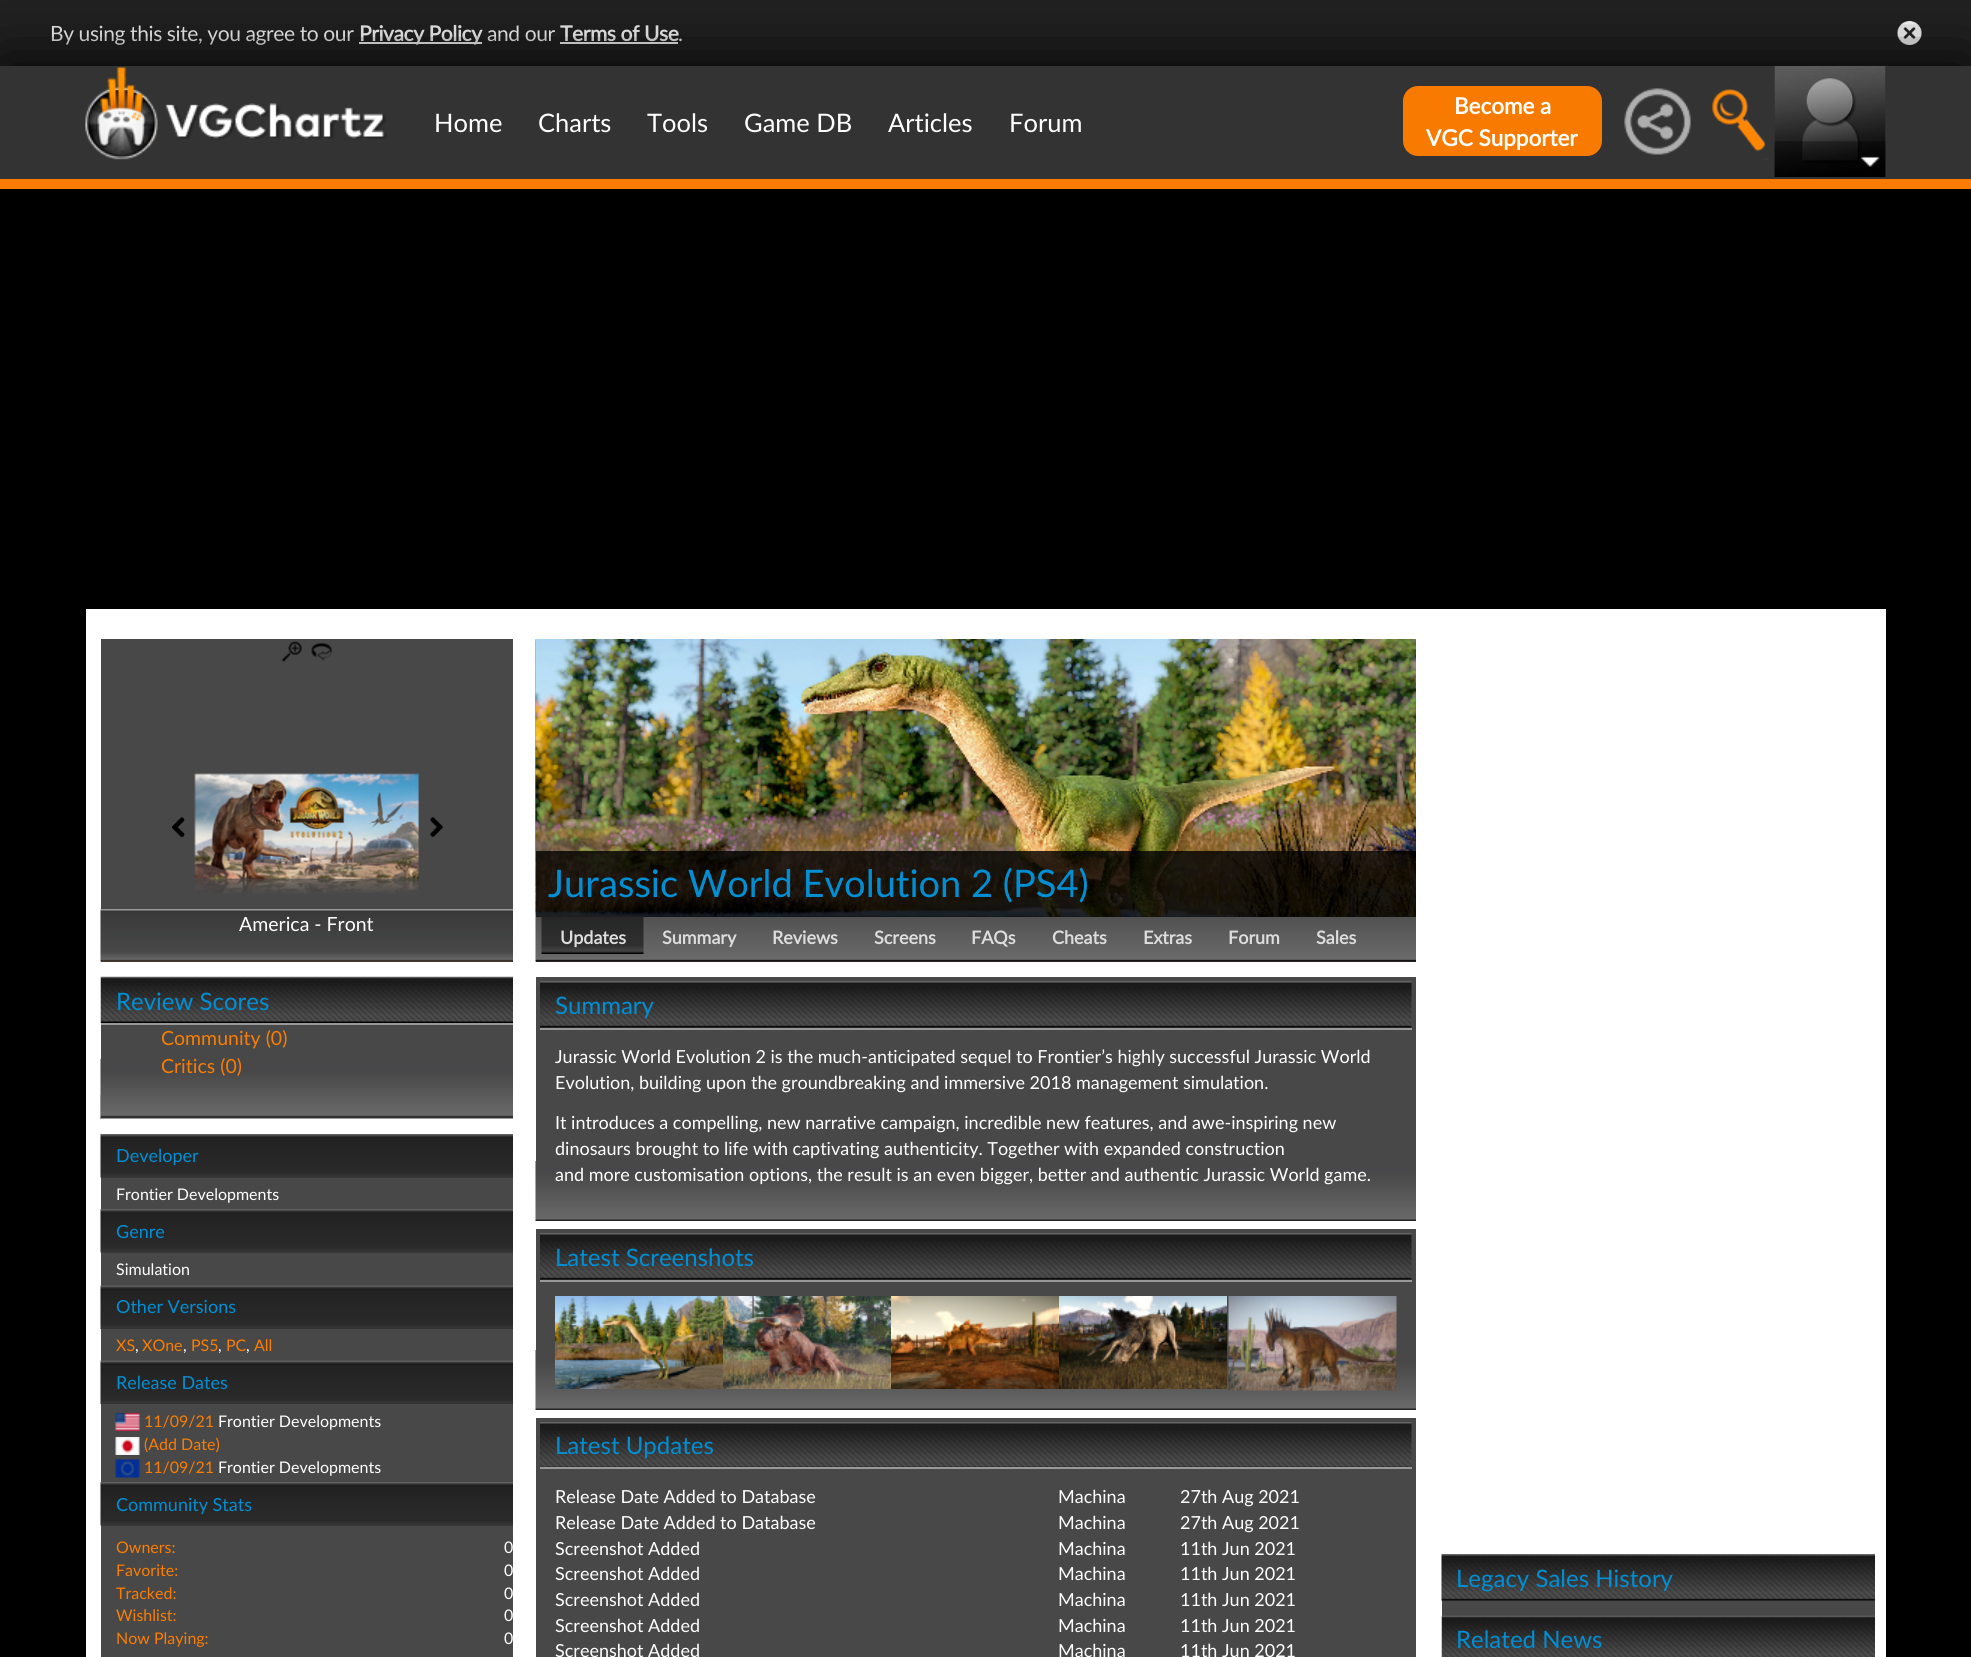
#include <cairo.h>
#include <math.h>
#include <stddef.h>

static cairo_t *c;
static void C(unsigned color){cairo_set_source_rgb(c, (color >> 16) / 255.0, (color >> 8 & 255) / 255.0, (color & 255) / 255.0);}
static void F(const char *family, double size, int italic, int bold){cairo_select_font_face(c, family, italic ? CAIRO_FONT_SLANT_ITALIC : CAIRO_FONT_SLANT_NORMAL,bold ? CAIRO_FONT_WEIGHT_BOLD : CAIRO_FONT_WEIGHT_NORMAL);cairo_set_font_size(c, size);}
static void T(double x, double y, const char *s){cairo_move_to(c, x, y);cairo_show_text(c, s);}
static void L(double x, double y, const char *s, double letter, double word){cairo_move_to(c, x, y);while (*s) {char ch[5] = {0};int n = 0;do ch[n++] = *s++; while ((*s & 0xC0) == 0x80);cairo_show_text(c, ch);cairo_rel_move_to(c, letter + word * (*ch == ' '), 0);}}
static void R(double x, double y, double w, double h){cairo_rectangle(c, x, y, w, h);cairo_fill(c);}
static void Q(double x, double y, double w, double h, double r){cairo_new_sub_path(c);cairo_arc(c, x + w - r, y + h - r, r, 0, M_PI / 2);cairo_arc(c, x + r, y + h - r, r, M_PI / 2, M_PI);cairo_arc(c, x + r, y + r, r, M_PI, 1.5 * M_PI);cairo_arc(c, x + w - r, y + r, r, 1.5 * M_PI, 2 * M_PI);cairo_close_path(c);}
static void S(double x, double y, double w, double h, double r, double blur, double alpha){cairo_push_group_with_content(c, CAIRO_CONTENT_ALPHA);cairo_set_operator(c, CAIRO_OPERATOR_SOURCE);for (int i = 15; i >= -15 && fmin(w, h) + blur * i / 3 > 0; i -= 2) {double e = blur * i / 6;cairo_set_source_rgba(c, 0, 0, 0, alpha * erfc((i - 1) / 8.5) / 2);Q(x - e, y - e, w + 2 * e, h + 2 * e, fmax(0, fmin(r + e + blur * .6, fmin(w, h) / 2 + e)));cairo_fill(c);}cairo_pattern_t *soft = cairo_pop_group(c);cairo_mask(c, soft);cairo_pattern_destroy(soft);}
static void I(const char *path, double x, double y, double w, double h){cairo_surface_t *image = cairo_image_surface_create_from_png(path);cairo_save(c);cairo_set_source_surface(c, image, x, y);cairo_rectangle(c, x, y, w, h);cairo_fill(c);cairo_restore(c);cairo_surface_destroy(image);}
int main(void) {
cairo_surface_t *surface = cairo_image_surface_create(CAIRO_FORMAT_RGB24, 1971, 1657);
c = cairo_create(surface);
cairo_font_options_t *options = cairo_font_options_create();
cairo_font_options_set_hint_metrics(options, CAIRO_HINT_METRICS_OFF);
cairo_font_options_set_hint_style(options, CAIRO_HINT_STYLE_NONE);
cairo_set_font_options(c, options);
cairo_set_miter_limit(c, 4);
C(0x000000);
cairo_paint(c);
C(0x222222);
R(0,0,1971,66);
F("Lato",21,0,0);
C(0xffffff);
L(50,41,"By using this site, you agree to our",-.4,0);
R(359,42,123,2);
F("Lato",21,0,1);
L(359,41,"Privacy Policy",-.4,0);
F("Lato",21,0,0);
L(487,41,"and our",-.4,0);
F("Lato",21,0,1);
L(560,41,"Terms of Use",-.4,0);
F("Lato",21,0,0);
L(678,41,".",-.4,0);
R(560,42,118,2);
I("1.png",1897,21,25,24);
C(0x000000);
S(0,68,1971,123,0,37.5,1);
C(0x333333);
R(0,66,1971,113);
I("2.png",85,67,302,93);
F("Lato",25.5,0,0);
C(0xffffff);
T(434,132,"Home");
T(538,132,"Charts");
T(647,132,"Tools");
T(744,132,"Game DB");
T(888,132,"Articles");
T(1009,132,"Forum");
C(0xf87b00);
Q(1404,87,197,68,14);
cairo_fill_preserve(c);
cairo_stroke(c);
F("Lato",22.5,0,1);
C(0xffffff);
T(1454,114,"Become a");
T(1426,146,"VGC Supporter");
I("3.png",1624,88,67,67);
I("4.png",1712,80,57,80);
I("5.png",1774,66,112,111);
I("6.png",1774,141,112,36);
C(0xf97b00);
R(0,179,1971,10);
C(0xffffff);
R(86,609,1800,1048);
C(0x484848);
R(101,639,412,323);
I("7.png",100,909,413,53);
I("8.png",172,817,13,20);
I("9.png",430,817,13,20);
I("10.png",281,641,21,21);
I("11.png",311,643,21,18);
I("12.png",194,773,225,106);
I("13.png",195,879,224,15);
F("Lato",19.5,0,0);
C(0xffffff);
T(239,931,"America - Front");
C(0x484848);
R(101,1025,412,34);
I("14.png",100,1059,413,60);
I("15.png",100,976,413,47);
C(0x999999);
R(101,1023,412,2);
F("Lato",24,0,0);
C(0x008fd4);
T(116,1010,"Review Scores");
F("Lato",19.5,0,0);
C(0xfa7d01);
T(161,1045,"Community (0)");
T(161,1073,"Critics (0)");
I("16.png",100,1095,413,23);
C(0x999999);
R(101,1118,412,1);
C(0x484848);
R(101,1177,412,480);
I("17.png",100,1134,413,44);
F("Lato",18,0,0);
C(0x008fd4);
T(116,1162,"Developer");
F("Lato",16,0,0);
C(0xffffff);
T(116,1200,"Frontier Developments");
I("17.png",100,1209,413,44);
F("Lato",18,0,0);
C(0x008fd4);
T(116,1238,"Genre");
F("Lato",16,0,0);
C(0xffffff);
T(116,1275,"Simulation");
I("18.png",100,1285,413,44);
F("Lato",18,0,0);
C(0x008fd4);
T(116,1313,"Other Versions");
F("Lato",16,0,0);
C(0xfa7d01);
T(116,1351,"XS");
T(142,1351,"XOne");
T(191,1351,"PS5");
T(226,1351,"PC");
T(254,1351,"All");
C(0xffffff);
T(135,1351,",");
T(183,1351,",");
T(218,1351,",");
T(246,1351,",");
I("18.png",100,1360,413,44);
F("Lato",18,0,0);
C(0x008fd4);
T(116,1389,"Release Dates");
I("19.png",115,1413,25,18);
F("Lato",16,0,0);
C(0xfa7d01);
T(144,1427,"11/09/21");
C(0xffffff);
T(218,1427,"Frontier Developments");
I("20.png",115,1437,25,18);
C(0xfa7d01);
T(144,1450,"(Add Date)");
I("21.png",115,1459,25,19);
T(144,1473,"11/09/21");
C(0xffffff);
T(218,1473,"Frontier Developments");
I("17.png",100,1482,413,44);
F("Lato",18,0,0);
C(0x008fd4);
T(116,1511,"Community Stats");
F("Lato",16,0,0);
C(0xfa7d01);
T(116,1553,"Owners:");
C(0xffffff);
T(504,1553,"0");
C(0xfa7d01);
T(116,1576,"Favorite:");
C(0xffffff);
T(504,1576,"0");
C(0xfa7d01);
T(116,1599,"Tracked:");
C(0xffffff);
T(504,1599,"0");
C(0xfa7d01);
T(116,1621,"Wishlist:");
C(0xffffff);
T(504,1621,"0");
C(0xfa7d01);
T(116,1644,"Now Playing:");
C(0xffffff);
T(504,1644,"0");
C(0x484848);
R(536,961,880,1);
I("22.png",535,639,881,323);
I("23.png",535,639,881,278);
cairo_set_source_rgba(c,0,0,0,0.8);
R(536,851,880,66);
F("Lato",38,0,0);
C(0x008fd4);
T(548,897,"Jurassic World Evolution 2 (PS4)");
I("24.png",541,916,103,38);
F("Lato",18,0,1);
C(0xdddddd);
T(560,944,"Updates");
T(662,944,"Summary");
T(772,944,"Reviews");
T(874,944,"Screens");
T(971,944,"FAQs");
T(1052,944,"Cheats");
T(1143,944,"Extras");
T(1228,944,"Forum");
T(1316,944,"Sales");
C(0x484848);
R(536,977,880,184);
I("25.png",535,1161,881,60);
I("26.png",540,981,872,47);
C(0x999999);
R(540,1028,872,2);
F("Lato",24,0,0);
C(0x008fd4);
T(555,1014,"Summary");
F("Lato",18,0,0);
C(0xffffff);
T(555,1063,"Jurassic World Evolution 2 is the much-anticipated sequel to Frontier’s highly successful Jurassic World");
T(555,1089,"Evolution, building upon the groundbreaking and immersive 2018 management simulation.");
T(555,1129,"It introduces a compelling, new narrative campaign, incredible new features, and awe-inspiring new");
T(555,1155,"dinosaurs brought to life with captivating authenticity. Together with expanded construction");
T(555,1181,"and more customisation options, the result is an even bigger, better and authentic Jurassic World game.");
C(0x484848);
R(536,1229,880,121);
I("25.png",535,1350,881,60);
I("27.png",540,1233,872,47);
C(0x999999);
R(540,1280,872,2);
F("Lato",24,0,0);
C(0x008fd4);
T(555,1266,"Latest Screenshots");
I("28.png",555,1296,168,93);
I("29.png",723,1296,168,93);
I("30.png",891,1296,168,93);
I("31.png",1059,1296,168,93);
I("32.png",1228,1296,169,95);
C(0x484848);
R(536,1418,880,239);
I("33.png",540,1422,872,45);
C(0x999999);
R(540,1467,872,2);
C(0x008fd4);
T(555,1454,"Latest Updates");
F("Lato",18,0,0);
C(0xffffff);
T(555,1503,"Release Date Added to Database");
T(1058,1503,"Machina");
T(1180,1503,"27th Aug 2021");
T(555,1529,"Release Date Added to Database");
T(1058,1529,"Machina");
T(1180,1529,"27th Aug 2021");
T(555,1555,"Screenshot Added");
T(1058,1555,"Machina");
T(1180,1555,"11th Jun 2021");
T(555,1580,"Screenshot Added");
T(1058,1580,"Machina");
T(1180,1580,"11th Jun 2021");
T(555,1606,"Screenshot Added");
T(1058,1606,"Machina");
T(1180,1606,"11th Jun 2021");
T(555,1632,"Screenshot Added");
T(1058,1632,"Machina");
T(1180,1632,"11th Jun 2021");
T(555,1657,"Screenshot Added");
T(1058,1657,"Machina");
T(1180,1657,"11th Jun 2021");
C(0x484848);
R(1442,1600,433,16);
I("34.png",1441,1554,434,47);
F("Lato",24,0,0);
C(0x008fd4);
T(1456,1587,"Legacy Sales History");
I("35.png",1441,1615,434,42);
T(1456,1648,"Related News");
cairo_surface_write_to_png(surface, "o.png");
cairo_font_options_destroy(options);
cairo_destroy(c);
cairo_surface_destroy(surface);
return 0;
}
